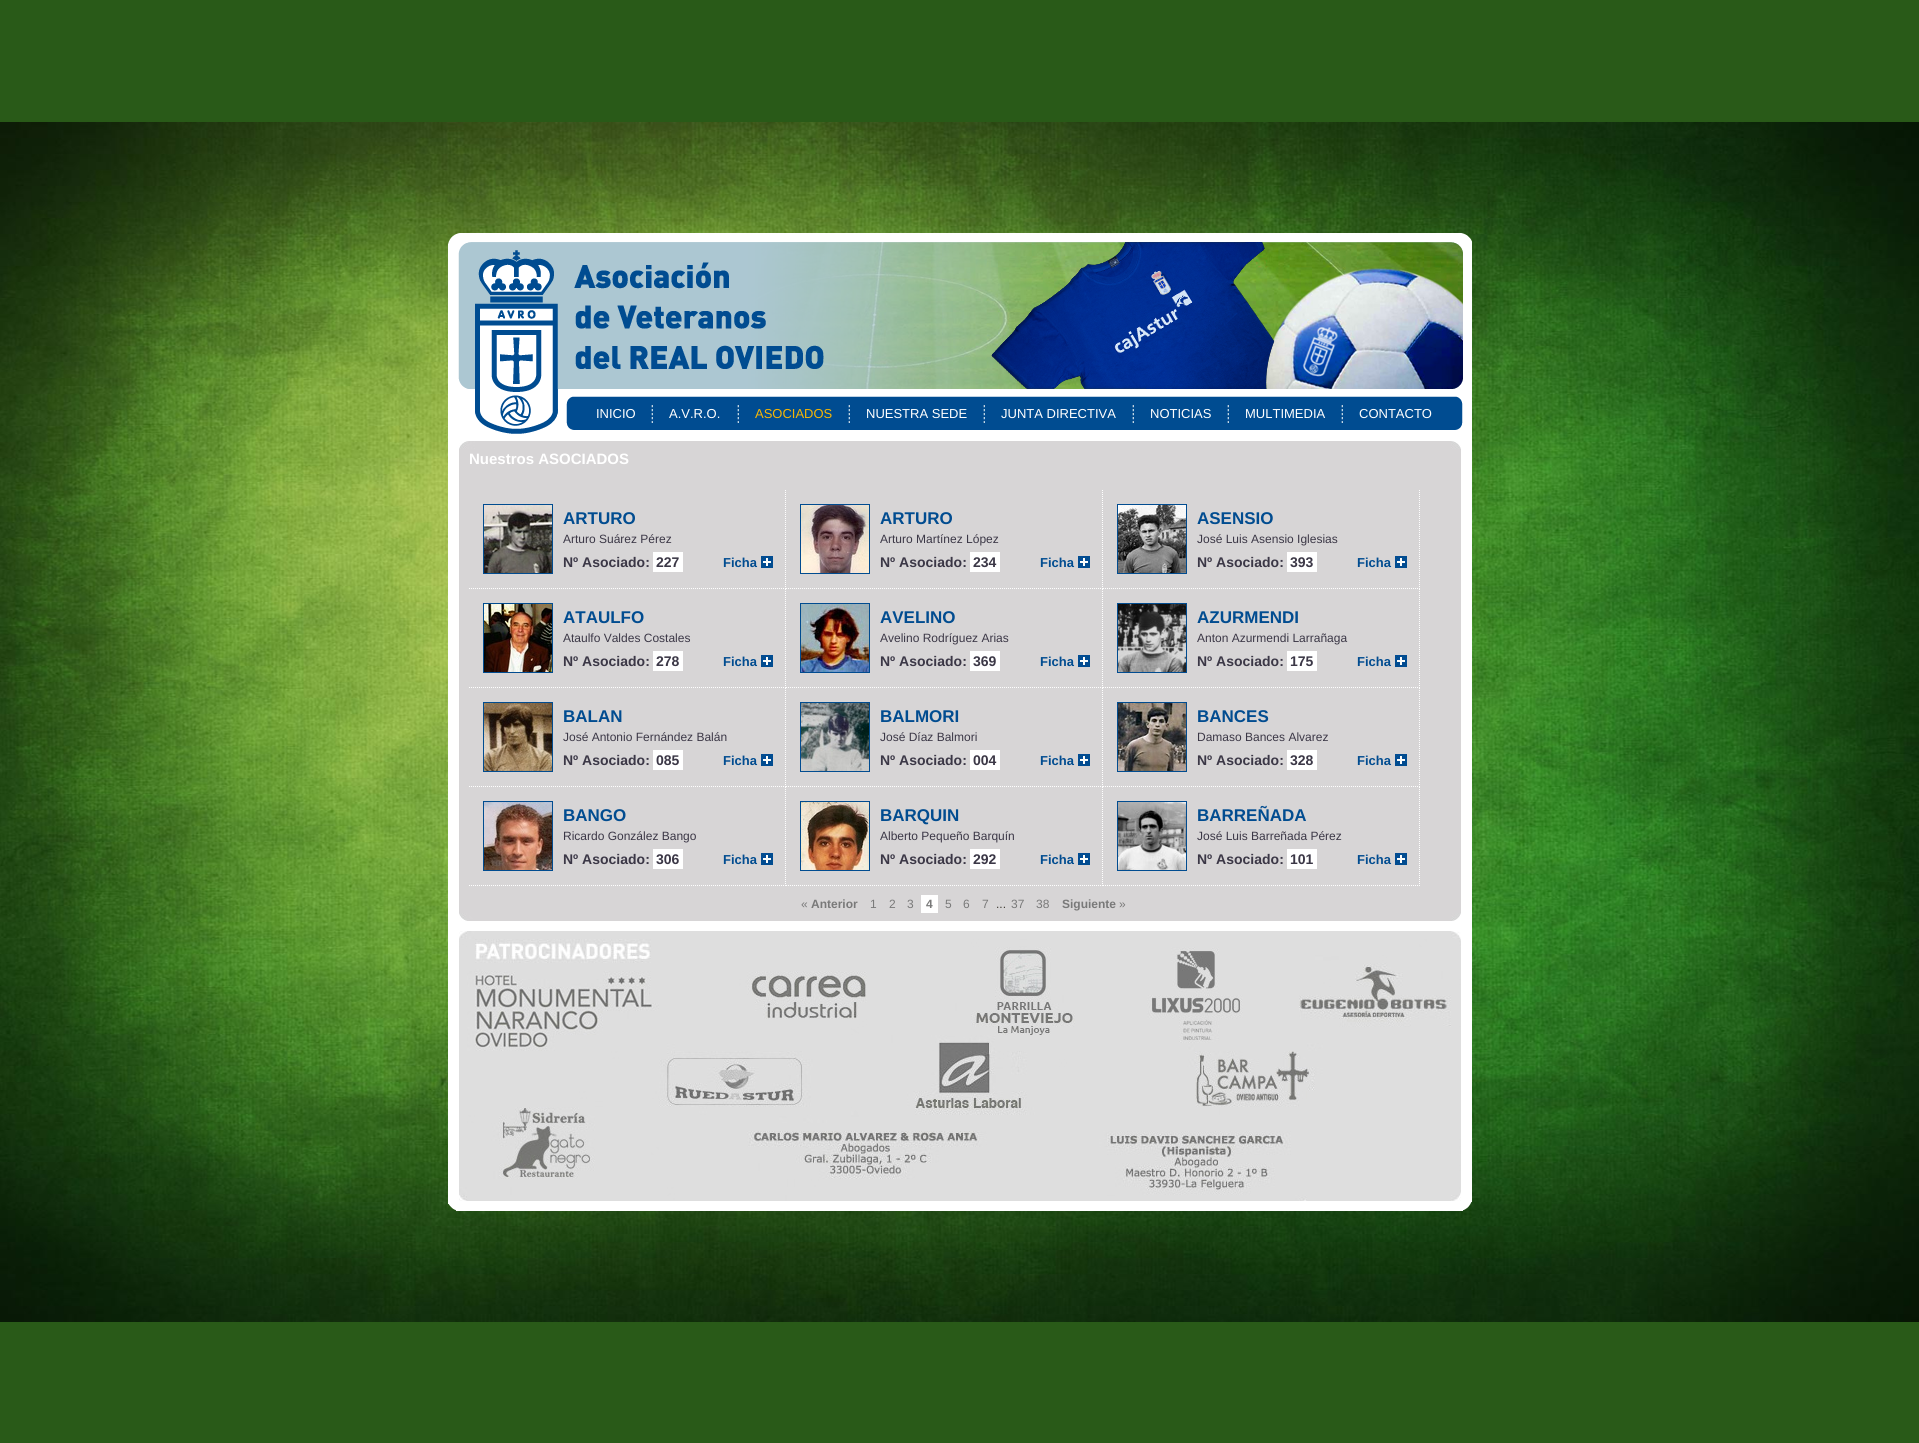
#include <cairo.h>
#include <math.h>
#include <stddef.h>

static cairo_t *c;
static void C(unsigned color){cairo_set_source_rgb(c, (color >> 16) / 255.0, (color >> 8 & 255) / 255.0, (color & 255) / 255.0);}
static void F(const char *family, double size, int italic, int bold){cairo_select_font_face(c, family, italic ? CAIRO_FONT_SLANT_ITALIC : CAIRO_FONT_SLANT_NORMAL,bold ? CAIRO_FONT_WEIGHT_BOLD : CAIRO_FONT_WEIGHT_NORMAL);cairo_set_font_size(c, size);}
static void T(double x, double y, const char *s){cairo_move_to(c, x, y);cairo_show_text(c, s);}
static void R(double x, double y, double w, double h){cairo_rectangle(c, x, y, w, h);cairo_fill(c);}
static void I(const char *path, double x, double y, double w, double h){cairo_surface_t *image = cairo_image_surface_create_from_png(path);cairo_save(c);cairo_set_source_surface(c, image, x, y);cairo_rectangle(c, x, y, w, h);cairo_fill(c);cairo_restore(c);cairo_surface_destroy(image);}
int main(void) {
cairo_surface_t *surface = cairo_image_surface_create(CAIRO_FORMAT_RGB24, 1919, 1443);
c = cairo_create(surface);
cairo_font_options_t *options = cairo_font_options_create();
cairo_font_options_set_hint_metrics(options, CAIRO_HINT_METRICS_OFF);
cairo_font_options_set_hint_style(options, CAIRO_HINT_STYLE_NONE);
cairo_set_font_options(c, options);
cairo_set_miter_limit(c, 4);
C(0x295a18);
cairo_paint(c);
I("1.png",0,122,1919,1200);
I("2.png",448,233,1024,978);
F("Liberation Sans",13,0,0);
C(0xffffff);
T(596,418,"INICIO");
I("3.png",651,405,2,18);
T(669,418,"A.V.R.O.");
I("3.png",737,405,2,18);
C(0xf7b604);
T(755,418,"ASOCIADOS");
I("3.png",848,405,2,18);
C(0xffffff);
T(866,418,"NUESTRA SEDE");
I("3.png",983,405,2,18);
T(1001,418,"JUNTA DIRECTIVA");
I("3.png",1132,405,2,18);
T(1150,418,"NOTICIAS");
I("3.png",1227,405,2,18);
T(1245,418,"MULTIMEDIA");
I("3.png",1341,405,2,18);
T(1359,418,"CONTACTO");
I("4.png",459,441,1002,480);
F("Liberation Sans",15,0,1);
T(469,464,"Nuestros ASOCIADOS");
cairo_new_path(c);
cairo_move_to(c,785.5,490);
cairo_line_to(c,785.5,589);
cairo_set_line_width(c,1);
cairo_set_dash(c,(double[]){1,1},2,0);
cairo_stroke(c);
cairo_new_path(c);
cairo_move_to(c,469,588.5);
cairo_line_to(c,786,588.5);
cairo_stroke(c);
cairo_rectangle(c,483.5,504.5,69,69);
C(0x014c90);
cairo_set_dash(c,NULL,0,0);
cairo_stroke(c);
I("5.png",484,505,68,68);
F("Liberation Sans",17,0,1);
T(563,524,"ARTURO");
F("Liberation Sans",12,0,0);
C(0x3b3746);
T(563,543,"Arturo Suárez Pérez");
F("Liberation Sans",14,0,1);
T(563,567,"Nº Asociado:");
C(0xffffff);
R(653,552,30,20);
C(0x3b3746);
T(656,567,"227");
F("Liberation Sans",13,0,1);
C(0x014c90);
T(723,567,"Ficha");
I("6.png",761,556,12,12);
cairo_new_path(c);
cairo_move_to(c,1102.5,490);
cairo_line_to(c,1102.5,589);
C(0xffffff);
cairo_set_dash(c,(double[]){1,1},2,0);
cairo_stroke(c);
cairo_new_path(c);
cairo_move_to(c,786,588.5);
cairo_line_to(c,1103,588.5);
cairo_stroke(c);
cairo_rectangle(c,800.5,504.5,69,69);
C(0x014c90);
cairo_set_dash(c,NULL,0,0);
cairo_stroke(c);
I("7.png",801,505,68,68);
F("Liberation Sans",17,0,1);
T(880,524,"ARTURO");
F("Liberation Sans",12,0,0);
C(0x3b3746);
T(880,543,"Arturo Martínez López");
F("Liberation Sans",14,0,1);
T(880,567,"Nº Asociado:");
C(0xffffff);
R(970,552,30,20);
C(0x3b3746);
T(973,567,"234");
F("Liberation Sans",13,0,1);
C(0x014c90);
T(1040,567,"Ficha");
I("6.png",1078,556,12,12);
cairo_new_path(c);
cairo_move_to(c,1419.5,490);
cairo_line_to(c,1419.5,589);
C(0xffffff);
cairo_set_dash(c,(double[]){1,1},2,0);
cairo_stroke(c);
cairo_new_path(c);
cairo_move_to(c,1103,588.5);
cairo_line_to(c,1420,588.5);
cairo_stroke(c);
cairo_rectangle(c,1117.5,504.5,69,69);
C(0x014c90);
cairo_set_dash(c,NULL,0,0);
cairo_stroke(c);
I("8.png",1118,505,68,68);
F("Liberation Sans",17,0,1);
T(1197,524,"ASENSIO");
F("Liberation Sans",12,0,0);
C(0x3b3746);
T(1197,543,"José Luis Asensio Iglesias");
F("Liberation Sans",14,0,1);
T(1197,567,"Nº Asociado:");
C(0xffffff);
R(1287,552,30,20);
C(0x3b3746);
T(1290,567,"393");
F("Liberation Sans",13,0,1);
C(0x014c90);
T(1357,567,"Ficha");
I("6.png",1395,556,12,12);
cairo_new_path(c);
cairo_move_to(c,785.5,589);
cairo_line_to(c,785.5,688);
C(0xffffff);
cairo_set_dash(c,(double[]){1,1},2,0);
cairo_stroke(c);
cairo_new_path(c);
cairo_move_to(c,469,687.5);
cairo_line_to(c,786,687.5);
cairo_stroke(c);
cairo_rectangle(c,483.5,603.5,69,69);
C(0x014c90);
cairo_set_dash(c,NULL,0,0);
cairo_stroke(c);
I("9.png",484,604,68,68);
F("Liberation Sans",17,0,1);
T(563,623,"ATAULFO");
F("Liberation Sans",12,0,0);
C(0x3b3746);
T(563,642,"Ataulfo Valdes Costales");
F("Liberation Sans",14,0,1);
T(563,666,"Nº Asociado:");
C(0xffffff);
R(653,651,30,20);
C(0x3b3746);
T(656,666,"278");
F("Liberation Sans",13,0,1);
C(0x014c90);
T(723,666,"Ficha");
I("6.png",761,655,12,12);
cairo_new_path(c);
cairo_move_to(c,1102.5,589);
cairo_line_to(c,1102.5,688);
C(0xffffff);
cairo_set_dash(c,(double[]){1,1},2,0);
cairo_stroke(c);
cairo_new_path(c);
cairo_move_to(c,786,687.5);
cairo_line_to(c,1103,687.5);
cairo_stroke(c);
cairo_rectangle(c,800.5,603.5,69,69);
C(0x014c90);
cairo_set_dash(c,NULL,0,0);
cairo_stroke(c);
I("10.png",801,604,68,68);
F("Liberation Sans",17,0,1);
T(880,623,"AVELINO");
F("Liberation Sans",12,0,0);
C(0x3b3746);
T(880,642,"Avelino Rodríguez Arias");
F("Liberation Sans",14,0,1);
T(880,666,"Nº Asociado:");
C(0xffffff);
R(970,651,30,20);
C(0x3b3746);
T(973,666,"369");
F("Liberation Sans",13,0,1);
C(0x014c90);
T(1040,666,"Ficha");
I("6.png",1078,655,12,12);
cairo_new_path(c);
cairo_move_to(c,1419.5,589);
cairo_line_to(c,1419.5,688);
C(0xffffff);
cairo_set_dash(c,(double[]){1,1},2,0);
cairo_stroke(c);
cairo_new_path(c);
cairo_move_to(c,1103,687.5);
cairo_line_to(c,1420,687.5);
cairo_stroke(c);
cairo_rectangle(c,1117.5,603.5,69,69);
C(0x014c90);
cairo_set_dash(c,NULL,0,0);
cairo_stroke(c);
I("11.png",1118,604,68,68);
F("Liberation Sans",17,0,1);
T(1197,623,"AZURMENDI");
F("Liberation Sans",12,0,0);
C(0x3b3746);
T(1197,642,"Anton Azurmendi Larrañaga");
F("Liberation Sans",14,0,1);
T(1197,666,"Nº Asociado:");
C(0xffffff);
R(1287,651,30,20);
C(0x3b3746);
T(1290,666,"175");
F("Liberation Sans",13,0,1);
C(0x014c90);
T(1357,666,"Ficha");
I("6.png",1395,655,12,12);
cairo_new_path(c);
cairo_move_to(c,785.5,688);
cairo_line_to(c,785.5,787);
C(0xffffff);
cairo_set_dash(c,(double[]){1,1},2,0);
cairo_stroke(c);
cairo_new_path(c);
cairo_move_to(c,469,786.5);
cairo_line_to(c,786,786.5);
cairo_stroke(c);
cairo_rectangle(c,483.5,702.5,69,69);
C(0x014c90);
cairo_set_dash(c,NULL,0,0);
cairo_stroke(c);
I("12.png",484,703,68,68);
F("Liberation Sans",17,0,1);
T(563,722,"BALAN");
F("Liberation Sans",12,0,0);
C(0x3b3746);
T(563,741,"José Antonio Fernández Balán");
F("Liberation Sans",14,0,1);
T(563,765,"Nº Asociado:");
C(0xffffff);
R(653,750,30,20);
C(0x3b3746);
T(656,765,"085");
F("Liberation Sans",13,0,1);
C(0x014c90);
T(723,765,"Ficha");
I("6.png",761,754,12,12);
cairo_new_path(c);
cairo_move_to(c,1102.5,688);
cairo_line_to(c,1102.5,787);
C(0xffffff);
cairo_set_dash(c,(double[]){1,1},2,0);
cairo_stroke(c);
cairo_new_path(c);
cairo_move_to(c,786,786.5);
cairo_line_to(c,1103,786.5);
cairo_stroke(c);
cairo_rectangle(c,800.5,702.5,69,69);
C(0x014c90);
cairo_set_dash(c,NULL,0,0);
cairo_stroke(c);
I("13.png",801,703,68,68);
F("Liberation Sans",17,0,1);
T(880,722,"BALMORI");
F("Liberation Sans",12,0,0);
C(0x3b3746);
T(880,741,"José Díaz Balmori");
F("Liberation Sans",14,0,1);
T(880,765,"Nº Asociado:");
C(0xffffff);
R(970,750,30,20);
C(0x3b3746);
T(973,765,"004");
F("Liberation Sans",13,0,1);
C(0x014c90);
T(1040,765,"Ficha");
I("6.png",1078,754,12,12);
cairo_new_path(c);
cairo_move_to(c,1419.5,688);
cairo_line_to(c,1419.5,787);
C(0xffffff);
cairo_set_dash(c,(double[]){1,1},2,0);
cairo_stroke(c);
cairo_new_path(c);
cairo_move_to(c,1103,786.5);
cairo_line_to(c,1420,786.5);
cairo_stroke(c);
cairo_rectangle(c,1117.5,702.5,69,69);
C(0x014c90);
cairo_set_dash(c,NULL,0,0);
cairo_stroke(c);
I("14.png",1118,703,68,68);
F("Liberation Sans",17,0,1);
T(1197,722,"BANCES");
F("Liberation Sans",12,0,0);
C(0x3b3746);
T(1197,741,"Damaso Bances Alvarez");
F("Liberation Sans",14,0,1);
T(1197,765,"Nº Asociado:");
C(0xffffff);
R(1287,750,30,20);
C(0x3b3746);
T(1290,765,"328");
F("Liberation Sans",13,0,1);
C(0x014c90);
T(1357,765,"Ficha");
I("6.png",1395,754,12,12);
cairo_new_path(c);
cairo_move_to(c,785.5,787);
cairo_line_to(c,785.5,886);
C(0xffffff);
cairo_set_dash(c,(double[]){1,1},2,0);
cairo_stroke(c);
cairo_new_path(c);
cairo_move_to(c,469,885.5);
cairo_line_to(c,786,885.5);
cairo_stroke(c);
cairo_rectangle(c,483.5,801.5,69,69);
C(0x014c90);
cairo_set_dash(c,NULL,0,0);
cairo_stroke(c);
I("15.png",484,802,68,68);
F("Liberation Sans",17,0,1);
T(563,821,"BANGO");
F("Liberation Sans",12,0,0);
C(0x3b3746);
T(563,840,"Ricardo González Bango");
F("Liberation Sans",14,0,1);
T(563,864,"Nº Asociado:");
C(0xffffff);
R(653,849,30,20);
C(0x3b3746);
T(656,864,"306");
F("Liberation Sans",13,0,1);
C(0x014c90);
T(723,864,"Ficha");
I("6.png",761,853,12,12);
cairo_new_path(c);
cairo_move_to(c,1102.5,787);
cairo_line_to(c,1102.5,886);
C(0xffffff);
cairo_set_dash(c,(double[]){1,1},2,0);
cairo_stroke(c);
cairo_new_path(c);
cairo_move_to(c,786,885.5);
cairo_line_to(c,1103,885.5);
cairo_stroke(c);
cairo_rectangle(c,800.5,801.5,69,69);
C(0x014c90);
cairo_set_dash(c,NULL,0,0);
cairo_stroke(c);
I("16.png",801,802,68,68);
F("Liberation Sans",17,0,1);
T(880,821,"BARQUIN");
F("Liberation Sans",12,0,0);
C(0x3b3746);
T(880,840,"Alberto Pequeño Barquín");
F("Liberation Sans",14,0,1);
T(880,864,"Nº Asociado:");
C(0xffffff);
R(970,849,30,20);
C(0x3b3746);
T(973,864,"292");
F("Liberation Sans",13,0,1);
C(0x014c90);
T(1040,864,"Ficha");
I("6.png",1078,853,12,12);
cairo_new_path(c);
cairo_move_to(c,1419.5,787);
cairo_line_to(c,1419.5,886);
C(0xffffff);
cairo_set_dash(c,(double[]){1,1},2,0);
cairo_stroke(c);
cairo_new_path(c);
cairo_move_to(c,1103,885.5);
cairo_line_to(c,1420,885.5);
cairo_stroke(c);
cairo_rectangle(c,1117.5,801.5,69,69);
C(0x014c90);
cairo_set_dash(c,NULL,0,0);
cairo_stroke(c);
I("17.png",1118,802,68,68);
F("Liberation Sans",17,0,1);
T(1197,821,"BARREÑADA");
F("Liberation Sans",12,0,0);
C(0x3b3746);
T(1197,840,"José Luis Barreñada Pérez");
F("Liberation Sans",14,0,1);
T(1197,864,"Nº Asociado:");
C(0xffffff);
R(1287,849,30,20);
C(0x3b3746);
T(1290,864,"101");
F("Liberation Sans",13,0,1);
C(0x014c90);
T(1357,864,"Ficha");
I("6.png",1395,853,12,12);
F("Liberation Sans",12,0,0);
C(0x797979);
T(801,908,"«");
F("Liberation Sans",12,0,1);
T(811,908,"Anterior");
F("Liberation Sans",12,0,0);
T(870,908,"1");
T(889,908,"2");
T(907,908,"3");
C(0xffffff);
R(921,895,17,18);
F("Liberation Sans",12,0,1);
C(0x797979);
T(926,908,"4");
F("Liberation Sans",12,0,0);
T(945,908,"5");
T(963,908,"6");
T(982,908,"7");
C(0x403b33);
T(996,908,"...");
C(0x797979);
T(1011,908,"37");
T(1036,908,"38");
F("Liberation Sans",12,0,1);
T(1062,908,"Siguiente");
F("Liberation Sans",12,0,0);
T(1119,908,"»");
I("18.png",459,931,1002,270);
cairo_surface_write_to_png(surface, "o.png");
cairo_font_options_destroy(options);
cairo_destroy(c);
cairo_surface_destroy(surface);
return 0;
}
